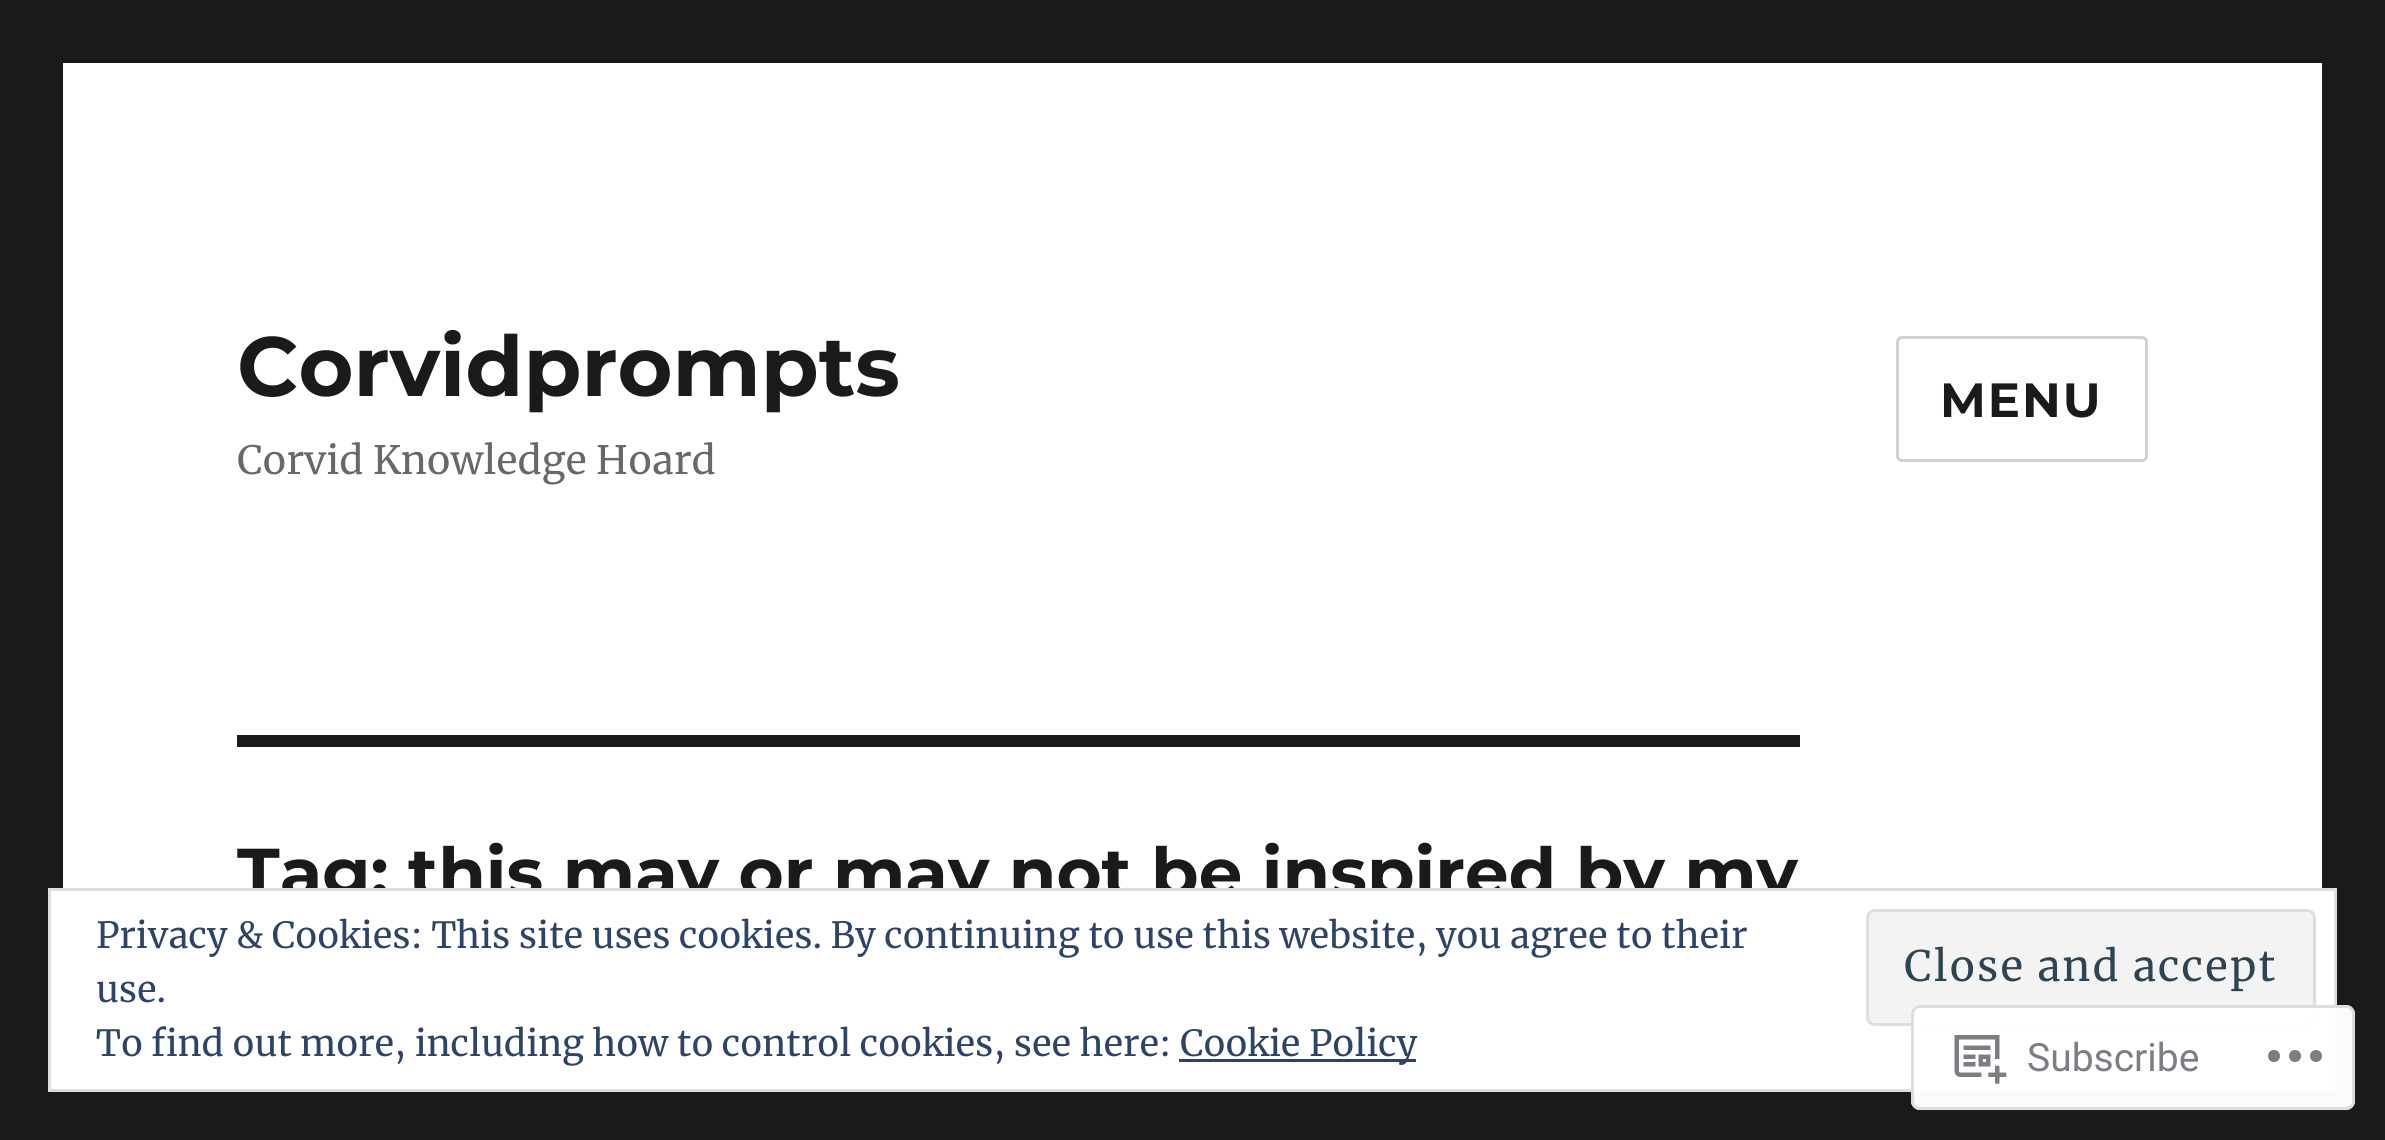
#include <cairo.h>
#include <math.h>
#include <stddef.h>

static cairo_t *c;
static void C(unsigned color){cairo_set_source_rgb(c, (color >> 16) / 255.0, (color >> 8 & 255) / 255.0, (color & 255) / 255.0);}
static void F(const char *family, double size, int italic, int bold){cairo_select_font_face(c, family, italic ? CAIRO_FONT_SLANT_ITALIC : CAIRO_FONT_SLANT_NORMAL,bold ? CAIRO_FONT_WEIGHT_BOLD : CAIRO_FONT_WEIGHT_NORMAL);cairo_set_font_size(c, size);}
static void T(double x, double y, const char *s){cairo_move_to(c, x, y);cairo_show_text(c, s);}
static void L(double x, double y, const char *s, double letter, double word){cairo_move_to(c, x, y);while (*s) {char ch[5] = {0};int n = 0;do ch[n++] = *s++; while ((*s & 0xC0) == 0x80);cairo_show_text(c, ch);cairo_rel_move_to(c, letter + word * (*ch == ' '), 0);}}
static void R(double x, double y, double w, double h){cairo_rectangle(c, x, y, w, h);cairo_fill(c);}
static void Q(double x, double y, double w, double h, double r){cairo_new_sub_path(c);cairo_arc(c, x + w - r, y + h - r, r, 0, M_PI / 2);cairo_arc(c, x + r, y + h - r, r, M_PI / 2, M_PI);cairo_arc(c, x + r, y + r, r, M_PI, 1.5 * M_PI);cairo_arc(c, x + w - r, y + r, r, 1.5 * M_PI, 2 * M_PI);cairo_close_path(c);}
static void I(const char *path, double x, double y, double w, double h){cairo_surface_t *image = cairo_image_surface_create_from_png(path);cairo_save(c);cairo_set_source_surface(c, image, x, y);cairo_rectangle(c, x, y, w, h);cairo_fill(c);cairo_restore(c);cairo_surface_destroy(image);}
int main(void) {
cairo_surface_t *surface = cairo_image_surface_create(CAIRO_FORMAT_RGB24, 2385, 1140);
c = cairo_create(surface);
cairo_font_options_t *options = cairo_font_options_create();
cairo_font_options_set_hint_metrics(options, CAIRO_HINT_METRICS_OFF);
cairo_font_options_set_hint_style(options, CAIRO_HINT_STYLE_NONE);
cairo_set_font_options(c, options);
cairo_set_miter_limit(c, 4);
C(0x1a1a1a);
cairo_paint(c);
C(0xffffff);
R(63,63,2259,825);
F("Montserrat Thin",84,0,0);
C(0x1a1a1a);
T(237,396,"Corvidprompts");
F("Merriweather",39,0,0);
C(0x686868);
T(237,474,"Corvid Knowledge Hoard");
Q(1897.5,337.5,249,123,4.5);
C(0xd1d1d1);
cairo_set_line_width(c,3);
cairo_stroke(c);
F("Montserrat Thin",48,0,0);
C(0x1a1a1a);
L(1940,417,"MENU",2,0);
R(237,735,1563,12);
F("Montserrat Thin",69,0,0);
T(237,897,"Tag: this may or may not be inspired by my");
C(0xffffff);
cairo_rectangle(c,49.5,889.5,2286,201);
cairo_fill_preserve(c);
C(0xdedede);
cairo_stroke(c);
F("Merriweather",36,0,0);
C(0x2e4467);
T(96,948,"Privacy & Cookies: This site uses cookies. By continuing to use this website, you agree to their");
T(96,1002,"use.");
C(0xf3f3f3);
Q(1867.5,910.5,447,114,7.5);
cairo_fill_preserve(c);
C(0xdedede);
cairo_stroke(c);
F("Merriweather",42,0,0);
C(0x2e4453);
L(1904,981,"Close and accept",2,0);
F("Merriweather",36,0,0);
C(0x2e4467);
T(96,1056,"To find out more, including how to control cookies, see here:");
R(1179,1059,237,3);
T(1180,1056,"Cookie Policy");
cairo_set_source_rgba(c,1,1,1,0.98);
Q(1911,1005,444,105,9);
cairo_fill(c);
Q(1912.5,1006.5,441,102,7.5);
cairo_set_source_rgba(c,0.863,0.863,0.871,0.98);
cairo_stroke(c);
I("1.png",1954,1035,53,49);
F("Roboto",39,0,0);
C(0x7b7f85);
T(2027,1071,"Subscribe");
cairo_new_path(c);
cairo_move_to(c,2280,1056);
cairo_curve_to(c,2280,1064,2268,1064,2268,1056);
cairo_curve_to(c,2268,1048,2280,1048,2280,1056);
cairo_close_path(c);
cairo_move_to(c,2316,1050);
cairo_curve_to(c,2308,1050,2308,1062,2316,1062);
cairo_curve_to(c,2324,1062,2324,1050,2316,1050);
cairo_close_path(c);
cairo_move_to(c,2295,1050);
cairo_curve_to(c,2287,1050,2287,1062,2295,1062);
cairo_curve_to(c,2303,1062,2303,1050,2295,1050);
cairo_close_path(c);
cairo_fill(c);
cairo_surface_write_to_png(surface, "o.png");
cairo_font_options_destroy(options);
cairo_destroy(c);
cairo_surface_destroy(surface);
return 0;
}
